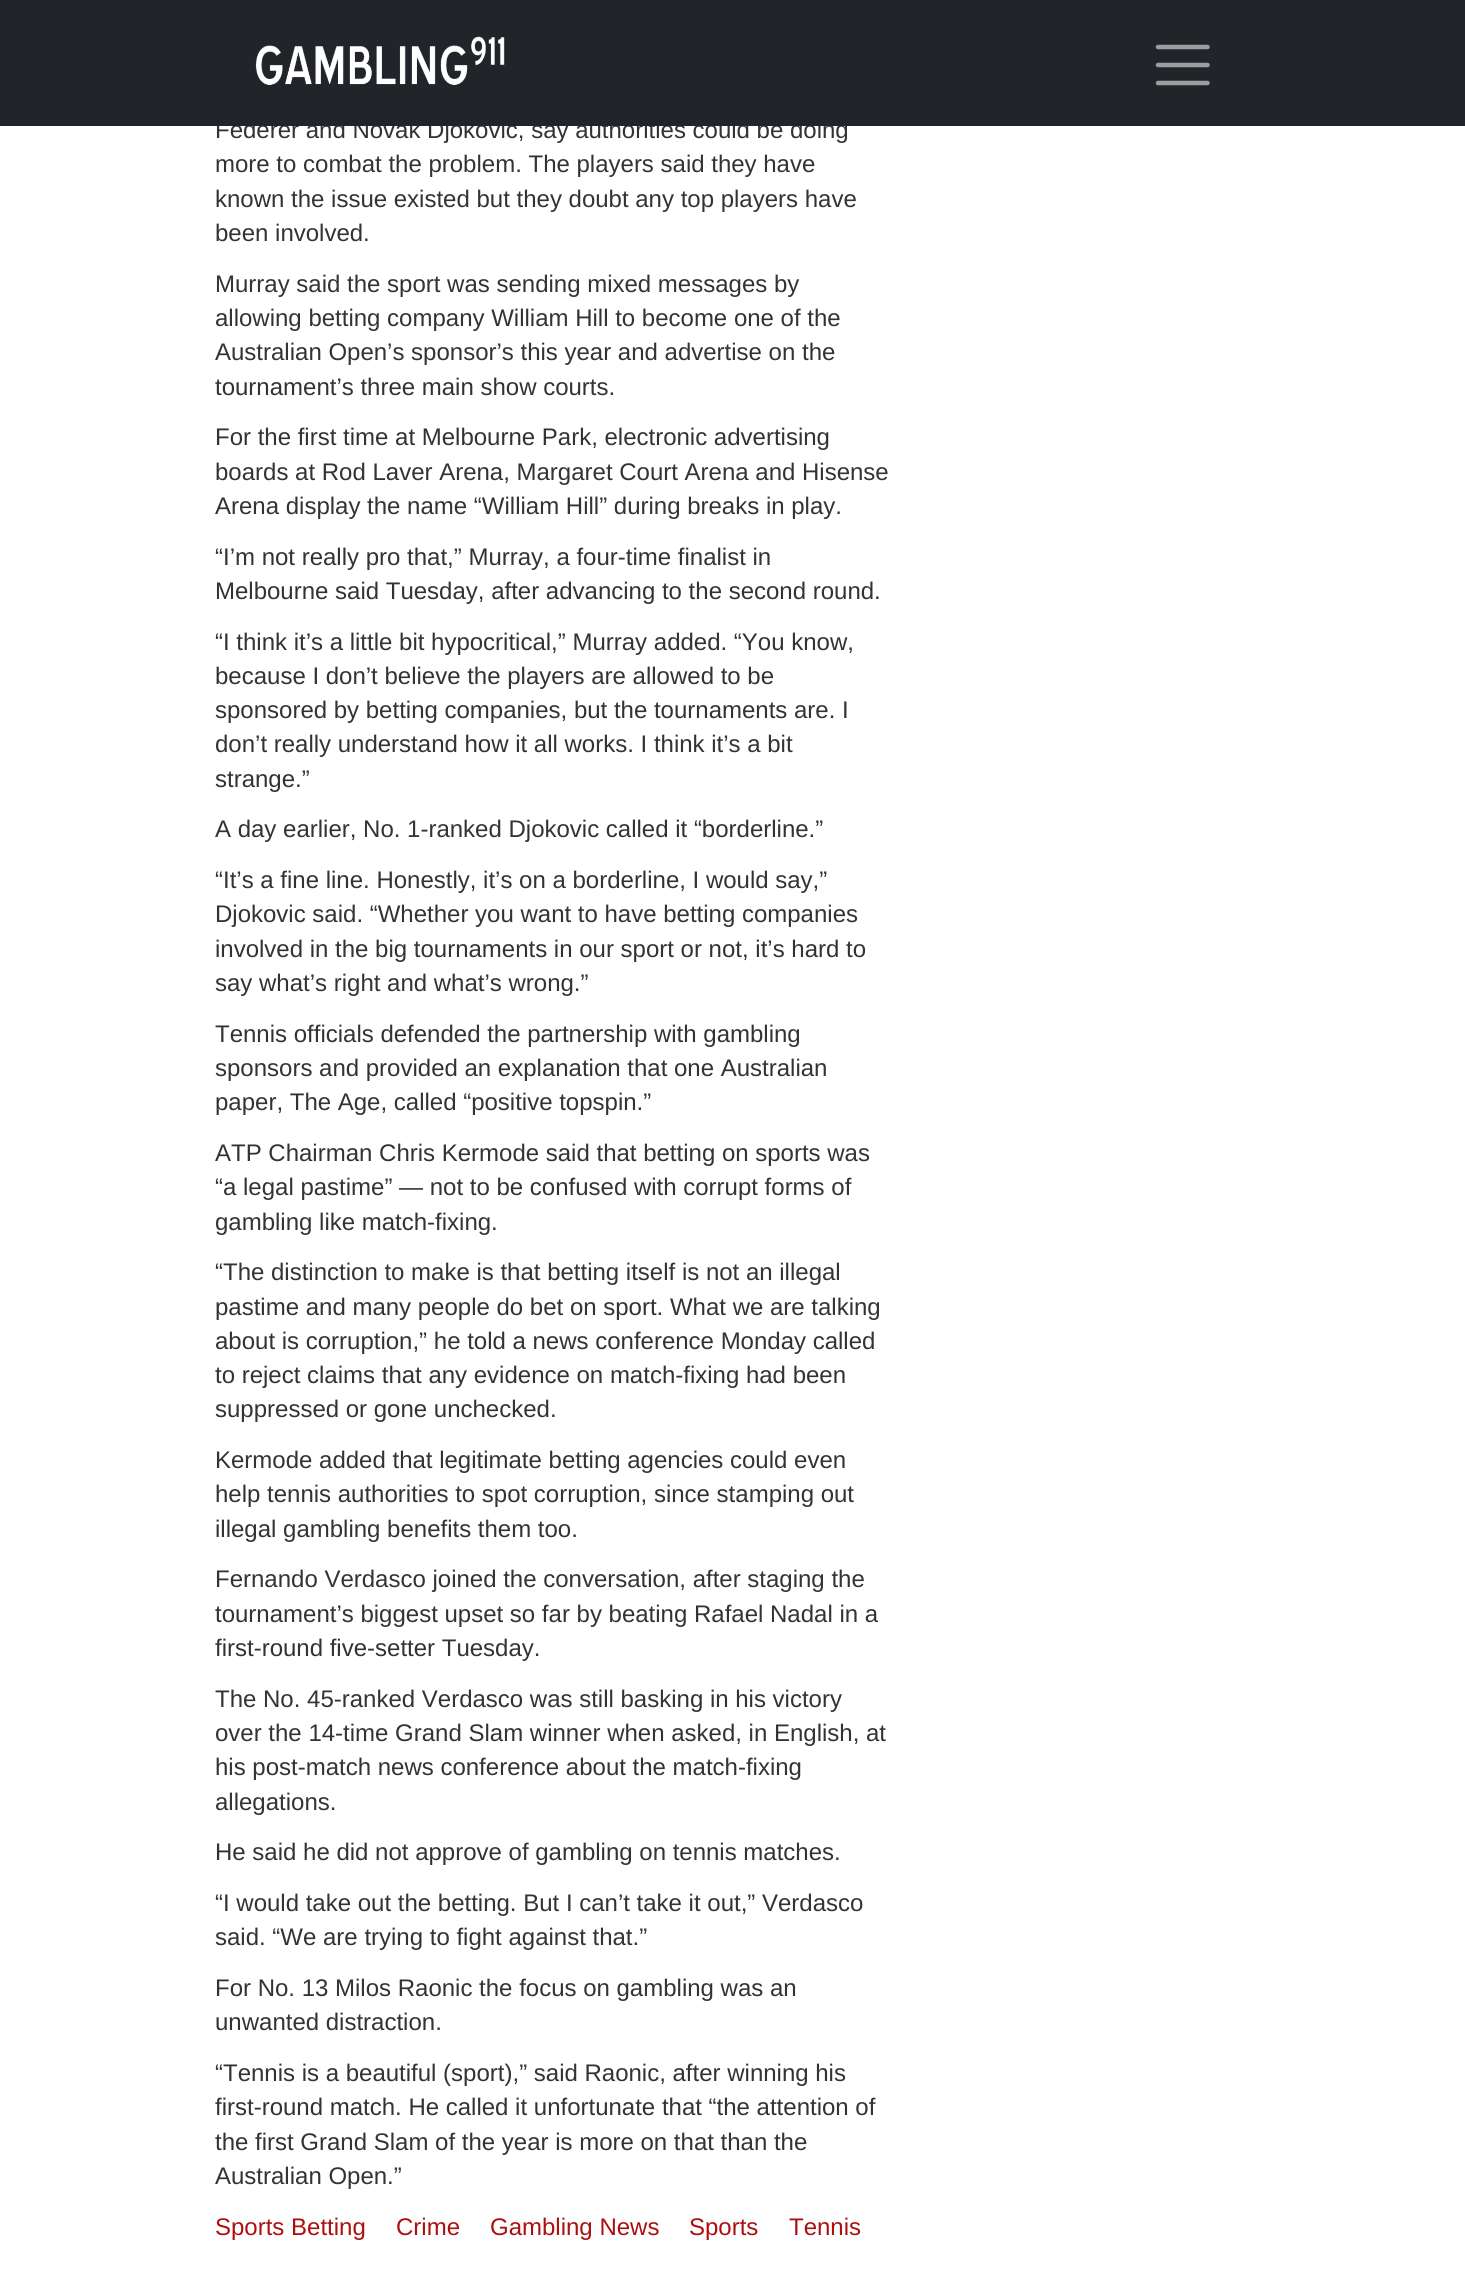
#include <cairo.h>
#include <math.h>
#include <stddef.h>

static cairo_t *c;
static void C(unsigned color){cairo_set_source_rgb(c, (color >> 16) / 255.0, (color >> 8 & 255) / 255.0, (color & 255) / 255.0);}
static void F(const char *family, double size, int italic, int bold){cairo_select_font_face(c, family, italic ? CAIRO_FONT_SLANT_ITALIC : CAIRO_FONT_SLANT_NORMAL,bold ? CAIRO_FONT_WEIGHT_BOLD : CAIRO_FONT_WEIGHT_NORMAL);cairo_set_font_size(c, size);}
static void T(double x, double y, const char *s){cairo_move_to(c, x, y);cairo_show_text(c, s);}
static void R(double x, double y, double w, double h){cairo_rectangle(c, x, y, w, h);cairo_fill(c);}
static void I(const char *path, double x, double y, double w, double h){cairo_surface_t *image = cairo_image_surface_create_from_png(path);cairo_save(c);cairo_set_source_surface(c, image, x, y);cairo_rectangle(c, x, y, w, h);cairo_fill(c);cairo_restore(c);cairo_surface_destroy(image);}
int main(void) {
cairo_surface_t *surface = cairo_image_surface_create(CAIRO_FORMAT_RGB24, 1465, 2294);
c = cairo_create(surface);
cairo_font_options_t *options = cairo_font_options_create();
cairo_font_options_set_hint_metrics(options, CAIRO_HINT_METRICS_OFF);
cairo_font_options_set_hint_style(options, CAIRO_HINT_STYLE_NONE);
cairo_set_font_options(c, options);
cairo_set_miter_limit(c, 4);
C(0xffffff);
cairo_paint(c);
F("Liberation Sans",24,0,0);
C(0x333333);
T(215,138,"Federer and Novak Djokovic, say authorities could be doing");
C(0x212529);
R(0,0,1465,126);
I("1.png",255,36,250,49);
cairo_new_path(c);
cairo_move_to(c,1158,47);
cairo_line_to(c,1207.5,47);
cairo_move_to(c,1158,65);
cairo_line_to(c,1207.5,65);
cairo_move_to(c,1158,83);
cairo_line_to(c,1207.5,83);
C(0x9b9d9f);
cairo_set_line_width(c,4.5);
cairo_set_line_cap(c,CAIRO_LINE_CAP_ROUND);
cairo_stroke(c);
C(0x333333);
T(215,172,"more to combat the problem. The players said they have");
T(215,207,"known the issue existed but they doubt any top players have");
T(215,241,"been involved.");
T(215,292,"Murray said the sport was sending mixed messages by");
T(215,326,"allowing betting company William Hill to become one of the");
T(215,360,"Australian Open’s sponsor’s this year and advertise on the");
T(215,395,"tournament’s three main show courts.");
T(215,445,"For the first time at Melbourne Park, electronic advertising");
T(215,480,"boards at Rod Laver Arena, Margaret Court Arena and Hisense");
T(215,514,"Arena display the name “William Hill” during breaks in play.");
T(215,565,"“I’m not really pro that,” Murray, a four-time finalist in");
T(215,599,"Melbourne said Tuesday, after advancing to the second round.");
T(215,650,"“I think it’s a little bit hypocritical,” Murray added. “You know,");
T(215,684,"because I don’t believe the players are allowed to be");
T(215,718,"sponsored by betting companies, but the tournaments are. I");
T(215,752,"don’t really understand how it all works. I think it’s a bit");
T(215,787,"strange.”");
T(215,837,"A day earlier, No. 1-ranked Djokovic called it “borderline.”");
T(215,888,"“It’s a fine line. Honestly, it’s on a borderline, I would say,”");
T(215,922,"Djokovic said. “Whether you want to have betting companies");
T(215,957,"involved in the big tournaments in our sport or not, it’s hard to");
T(215,991,"say what’s right and what’s wrong.”");
T(215,1042,"Tennis officials defended the partnership with gambling");
T(215,1076,"sponsors and provided an explanation that one Australian");
T(215,1110,"paper, The Age, called “positive topspin.”");
T(215,1161,"ATP Chairman Chris Kermode said that betting on sports was");
T(215,1195,"“a legal pastime” — not to be confused with corrupt forms of");
T(215,1230,"gambling like match-fixing.");
T(215,1280,"“The distinction to make is that betting itself is not an illegal");
T(215,1315,"pastime and many people do bet on sport. What we are talking");
T(215,1349,"about is corruption,” he told a news conference Monday called");
T(215,1383,"to reject claims that any evidence on match-fixing had been");
T(215,1417,"suppressed or gone unchecked.");
T(215,1468,"Kermode added that legitimate betting agencies could even");
T(215,1502,"help tennis authorities to spot corruption, since stamping out");
T(215,1537,"illegal gambling benefits them too.");
T(215,1587,"Fernando Verdasco joined the conversation, after staging the");
T(215,1622,"tournament’s biggest upset so far by beating Rafael Nadal in a");
T(215,1656,"first-round five-setter Tuesday.");
T(215,1707,"The No. 45-ranked Verdasco was still basking in his victory");
T(215,1741,"over the 14-time Grand Slam winner when asked, in English, at");
T(215,1775,"his post-match news conference about the match-fixing");
T(215,1810,"allegations.");
T(215,1860,"He said he did not approve of gambling on tennis matches.");
T(215,1911,"“I would take out the betting. But I can’t take it out,” Verdasco");
T(215,1945,"said. “We are trying to fight against that.”");
T(215,1996,"For No. 13 Milos Raonic the focus on gambling was an");
T(215,2030,"unwanted distraction.");
T(215,2081,"“Tennis is a beautiful (sport),” said Raonic, after winning his");
T(215,2115,"first-round match. He called it unfortunate that “the attention of");
T(215,2150,"the first Grand Slam of the year is more on that than the");
T(215,2184,"Australian Open.”");
C(0xac0f0f);
T(215,2235,"Sports Betting");
T(396,2235,"Crime");
T(490,2235,"Gambling News");
T(689,2235,"Sports");
T(789,2235,"Tennis");
cairo_surface_write_to_png(surface, "o.png");
cairo_font_options_destroy(options);
cairo_destroy(c);
cairo_surface_destroy(surface);
return 0;
}
